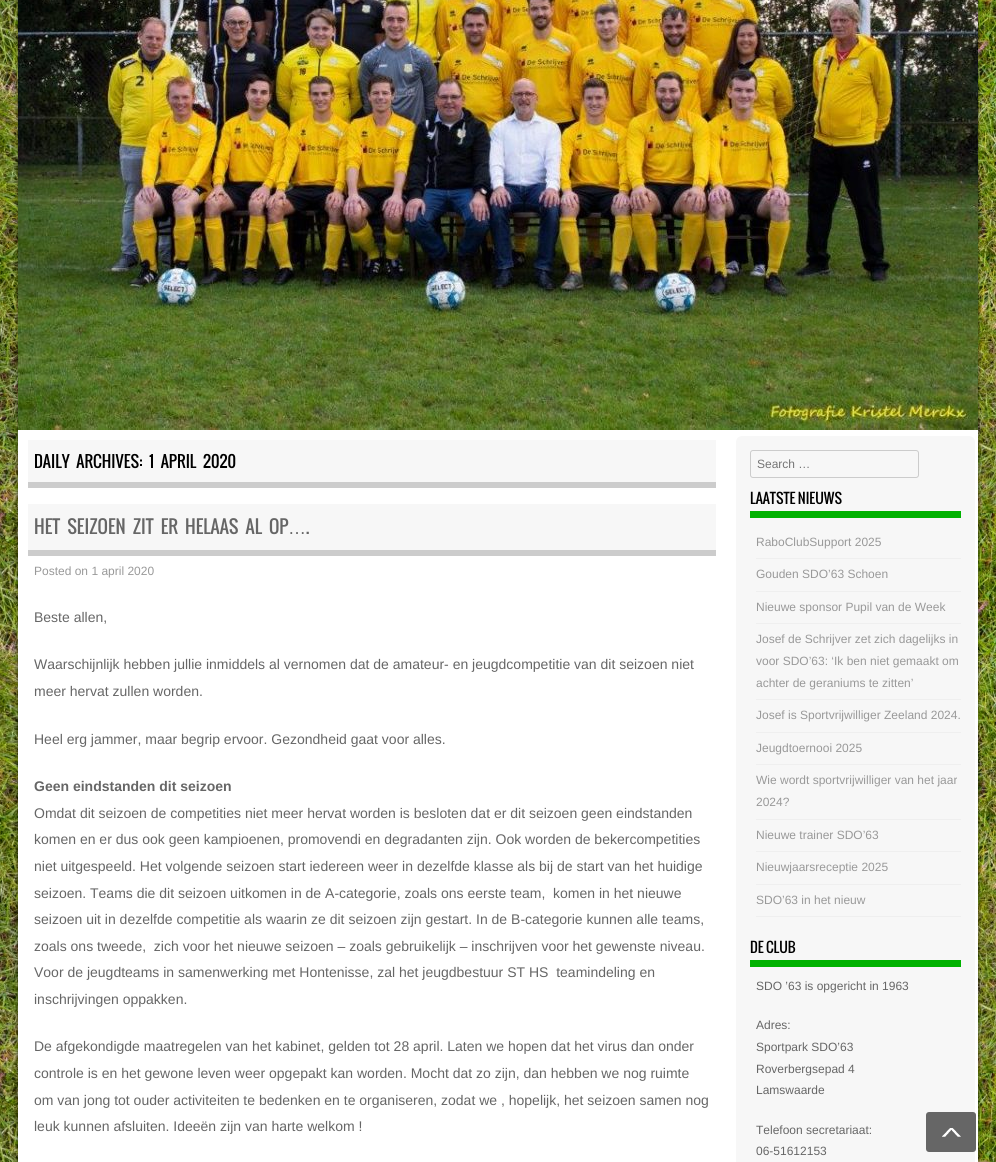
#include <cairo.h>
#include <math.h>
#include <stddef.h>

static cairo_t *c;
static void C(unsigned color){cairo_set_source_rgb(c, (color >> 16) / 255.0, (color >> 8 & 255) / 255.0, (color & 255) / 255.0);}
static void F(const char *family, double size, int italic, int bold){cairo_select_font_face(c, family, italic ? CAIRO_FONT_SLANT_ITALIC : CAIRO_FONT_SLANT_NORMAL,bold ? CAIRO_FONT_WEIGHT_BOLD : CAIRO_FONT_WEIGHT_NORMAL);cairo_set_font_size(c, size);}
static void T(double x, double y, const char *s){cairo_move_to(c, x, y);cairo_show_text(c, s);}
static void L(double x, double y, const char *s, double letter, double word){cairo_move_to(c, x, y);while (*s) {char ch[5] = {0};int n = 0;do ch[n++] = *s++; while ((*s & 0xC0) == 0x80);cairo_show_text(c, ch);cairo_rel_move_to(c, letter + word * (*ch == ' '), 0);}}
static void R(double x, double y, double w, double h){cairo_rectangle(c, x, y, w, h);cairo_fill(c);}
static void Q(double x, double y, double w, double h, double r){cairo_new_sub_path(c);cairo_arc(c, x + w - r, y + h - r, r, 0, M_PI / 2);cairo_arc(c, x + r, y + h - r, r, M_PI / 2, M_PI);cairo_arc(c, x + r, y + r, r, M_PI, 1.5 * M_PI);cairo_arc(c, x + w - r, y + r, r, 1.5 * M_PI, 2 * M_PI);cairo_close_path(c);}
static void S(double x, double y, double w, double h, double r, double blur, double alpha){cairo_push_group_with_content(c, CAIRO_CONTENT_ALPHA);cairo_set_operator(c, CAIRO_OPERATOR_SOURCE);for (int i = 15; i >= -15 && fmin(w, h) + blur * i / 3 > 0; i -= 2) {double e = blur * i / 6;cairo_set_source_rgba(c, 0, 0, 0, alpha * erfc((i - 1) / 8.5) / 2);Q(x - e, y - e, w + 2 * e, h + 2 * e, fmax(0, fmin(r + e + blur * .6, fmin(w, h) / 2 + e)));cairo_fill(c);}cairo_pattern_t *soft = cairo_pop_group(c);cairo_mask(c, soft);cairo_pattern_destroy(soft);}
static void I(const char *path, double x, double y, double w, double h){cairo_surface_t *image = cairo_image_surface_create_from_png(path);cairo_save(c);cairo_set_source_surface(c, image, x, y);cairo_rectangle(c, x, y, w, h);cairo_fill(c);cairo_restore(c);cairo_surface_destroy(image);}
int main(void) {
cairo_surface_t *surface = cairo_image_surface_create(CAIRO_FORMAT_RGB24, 996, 1162);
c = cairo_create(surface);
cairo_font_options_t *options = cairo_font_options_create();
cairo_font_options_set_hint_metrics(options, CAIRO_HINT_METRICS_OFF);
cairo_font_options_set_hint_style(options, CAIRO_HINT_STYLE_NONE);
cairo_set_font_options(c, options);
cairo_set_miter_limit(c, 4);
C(0xffffff);
cairo_paint(c);
I("1.png",0,0,996,1162);
C(0x000000);
S(18,-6,960,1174,0,2,.6);
C(0xffffff);
R(18,430,960,732);
I("2.png",18,0,960,430);
C(0xf7f7f7);
R(28,440,688,42);
C(0xcccccc);
R(28,482,688,6);
F("Oswald",16,0,0);
C(0x000000);
L(34,468,"DAILY ARCHIVES:",0,4);
L(149,468,"1 APRIL 2020",0,4);
C(0xf7f7f7);
R(28,504,688,46);
C(0xcccccc);
R(28,550,688,6);
F("Oswald",18,0,0);
C(0x666666);
L(34,534,"HET SEIZOEN ZIT ER HELAAS AL OP",0,4);
F("Liberation Sans",18,0,0);
T(288,534,"…");
F("Oswald",18,0,0);
T(306,534,".");
F("Liberation Sans",12,0,0);
C(0x999999);
T(34,575,"Posted on 1 april 2020");
F("Liberation Sans",14,0,0);
C(0x666666);
T(34,622,"Beste allen,");
T(34,669,"Waarschijnlijk hebben jullie inmiddels al vernomen dat de amateur- en jeugdcompetitie van dit seizoen niet");
T(34,696,"meer hervat zullen worden.");
T(34,744,"Heel erg jammer, maar begrip ervoor. Gezondheid gaat voor alles.");
F("Liberation Sans",14,0,1);
T(34,791,"Geen eindstanden dit seizoen");
F("Liberation Sans",14,0,0);
T(34,818,"Omdat dit seizoen de competities niet meer hervat worden is besloten dat er dit seizoen geen eindstanden");
T(34,844,"komen en er dus ook geen kampioenen, promovendi en degradanten zijn. Ook worden de bekercompetities");
T(34,871,"niet uitgespeeld. Het volgende seizoen start iedereen weer in dezelfde klasse als bij de start van het huidige");
T(34,898,"seizoen. Teams die dit seizoen uitkomen in de A-categorie, zoals ons eerste team,  komen in het nieuwe");
T(34,924,"seizoen uit in dezelfde competitie als waarin ze dit seizoen zijn gestart. In de B-categorie kunnen alle teams,");
T(34,951,"zoals ons tweede,  zich voor het nieuwe seizoen – zoals gebruikelijk – inschrijven voor het gewenste niveau.");
T(34,977,"Voor de jeugdteams in samenwerking met Hontenisse, zal het jeugdbestuur ST HS  teamindeling en");
T(34,1004,"inschrijvingen oppakken.");
T(34,1051,"De afgekondigde maatregelen van het kabinet, gelden tot 28 april. Laten we hopen dat het virus dan onder");
T(34,1078,"controle is en het gewone leven weer opgepakt kan worden. Mocht dat zo zijn, dan hebben we nog ruimte");
T(34,1105,"om van jong tot ouder activiteiten te bedenken en te organiseren, zodat we , hopelijk, het seizoen samen nog");
T(34,1131,"leuk kunnen afsluiten. Ideeën zijn van harte welkom !");
C(0xf7f7f7);
Q(736,436,239,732,6);
cairo_fill(c);
Q(750.5,450.5,168,27,2.5);
C(0xcccccc);
cairo_set_line_width(c,1);
cairo_stroke(c);
F("Liberation Sans",12,0,0);
C(0x757575);
T(757,468,"Search …");
C(0x00b200);
R(750,511,211,7);
F("Oswald",14,0,0);
C(0x000000);
T(750,504,"LAATSTE NIEUWS");
C(0xefefef);
R(756,558,205,1);
F("Liberation Sans",12,0,0);
C(0x999999);
T(756,546,"RaboClubSupport 2025");
C(0xefefef);
R(756,591,205,1);
C(0x999999);
T(756,578,"Gouden SDO’63 Schoen");
C(0xefefef);
R(756,623,205,1);
C(0x999999);
T(756,611,"Nieuwe sponsor Pupil van de Week");
C(0xefefef);
R(756,699,205,1);
C(0x999999);
T(756,643,"Josef de Schrijver zet zich dagelijks in");
T(756,665,"voor SDO’63: ‘Ik ben niet gemaakt om");
T(756,687,"achter de geraniums te zitten’");
C(0xefefef);
R(756,732,205,1);
C(0x999999);
T(756,719,"Josef is Sportvrijwilliger Zeeland 2024.");
C(0xefefef);
R(756,764,205,1);
C(0x999999);
T(756,752,"Jeugdtoernooi 2025");
C(0xefefef);
R(756,819,205,1);
C(0x999999);
T(756,784,"Wie wordt sportvrijwilliger van het jaar");
T(756,806,"2024?");
C(0xefefef);
R(756,851,205,1);
C(0x999999);
T(756,839,"Nieuwe trainer SDO’63");
C(0xefefef);
R(756,884,205,1);
C(0x999999);
T(756,871,"Nieuwjaarsreceptie 2025");
C(0xefefef);
R(756,916,205,1);
C(0x999999);
T(756,904,"SDO’63 in het nieuw");
C(0x00b200);
R(750,960,211,7);
F("Oswald",14,0,0);
C(0x000000);
T(750,953,"DE CLUB");
F("Liberation Sans",12,0,0);
C(0x666666);
T(756,990,"SDO ’63 is opgericht in 1963");
T(756,1029,"Adres:");
T(756,1051,"Sportpark SDO’63");
T(756,1073,"Roverbergsepad 4");
T(756,1094,"Lamswaarde");
T(756,1134,"Telefoon secretariaat:");
T(756,1155,"06-51612153");
Q(926,1112,50,40,3);
cairo_fill(c);
I("3.png",942,1128,19,9);
cairo_surface_write_to_png(surface, "o.png");
cairo_font_options_destroy(options);
cairo_destroy(c);
cairo_surface_destroy(surface);
return 0;
}
